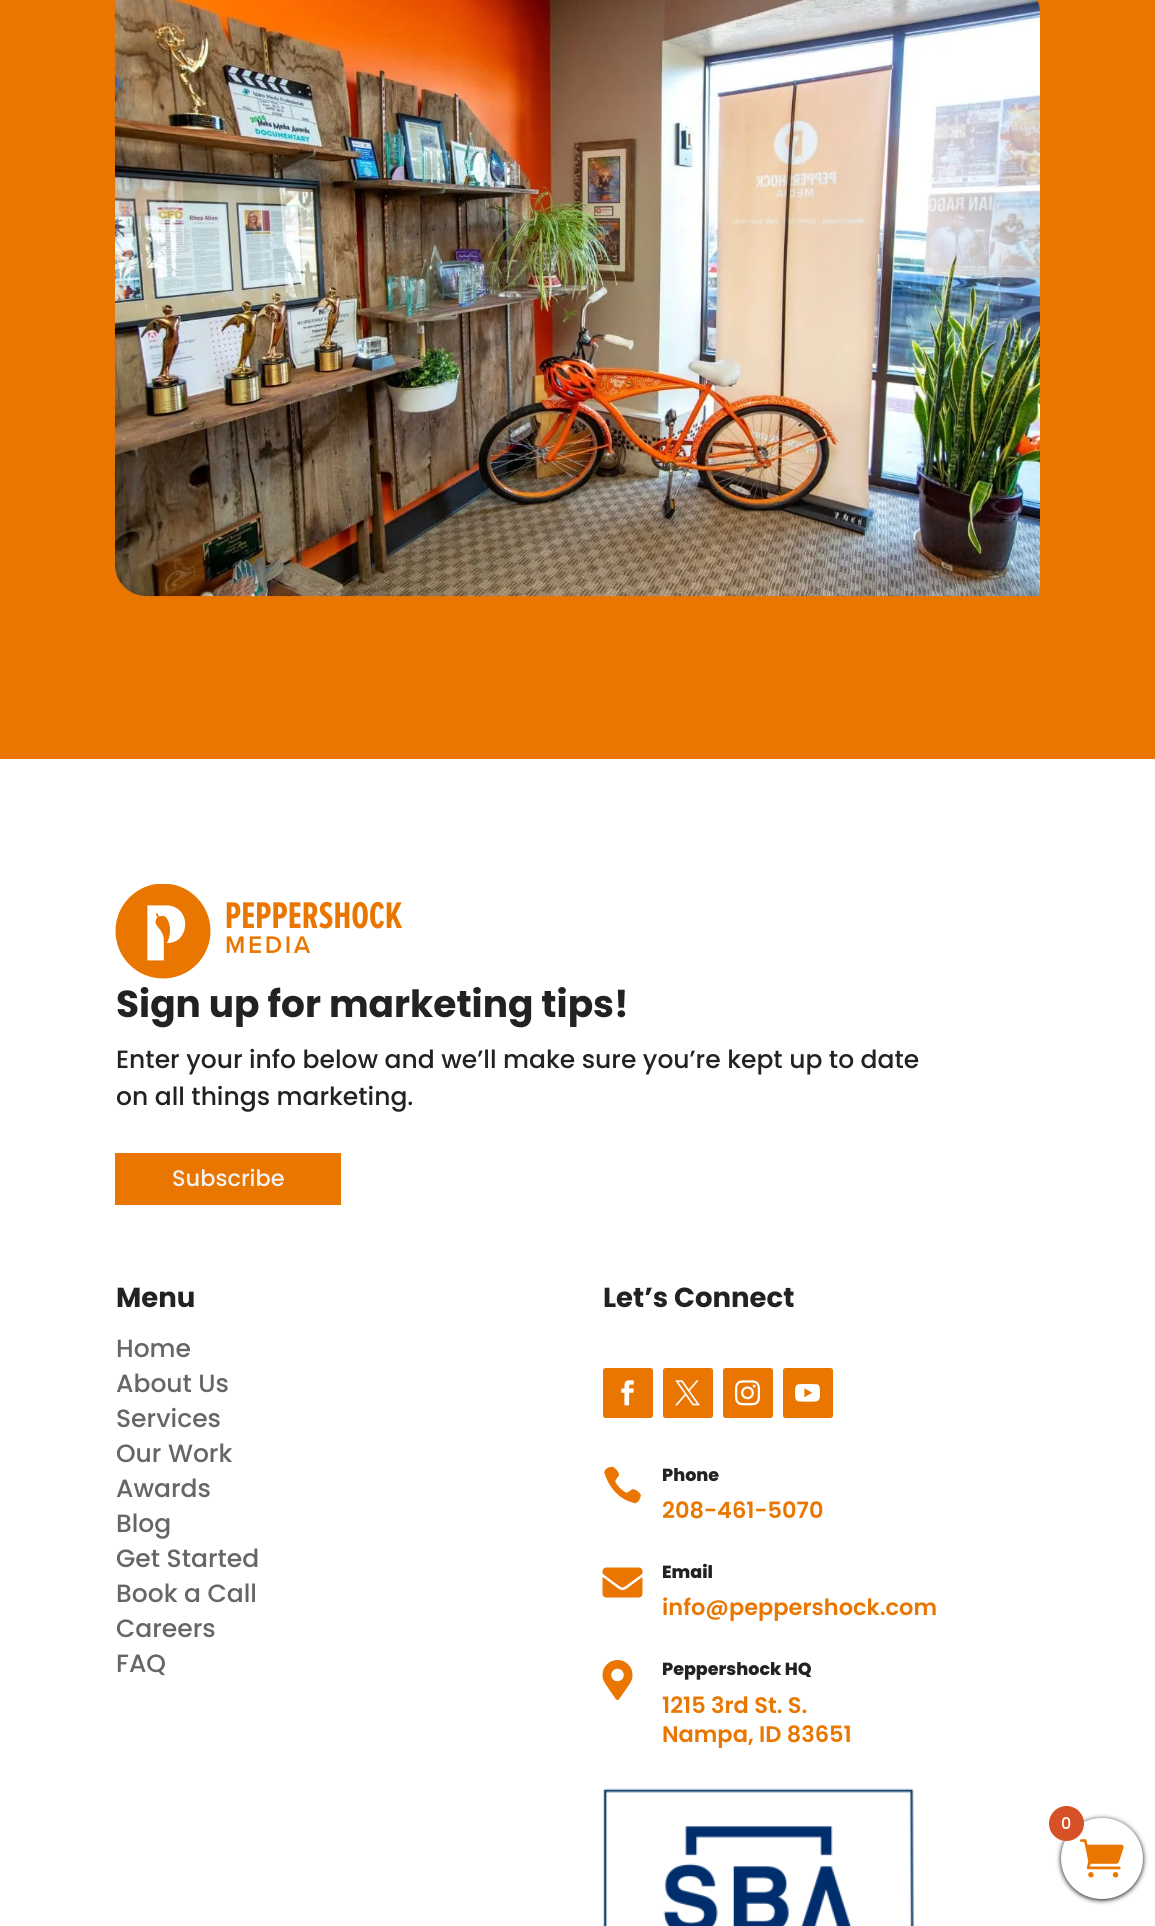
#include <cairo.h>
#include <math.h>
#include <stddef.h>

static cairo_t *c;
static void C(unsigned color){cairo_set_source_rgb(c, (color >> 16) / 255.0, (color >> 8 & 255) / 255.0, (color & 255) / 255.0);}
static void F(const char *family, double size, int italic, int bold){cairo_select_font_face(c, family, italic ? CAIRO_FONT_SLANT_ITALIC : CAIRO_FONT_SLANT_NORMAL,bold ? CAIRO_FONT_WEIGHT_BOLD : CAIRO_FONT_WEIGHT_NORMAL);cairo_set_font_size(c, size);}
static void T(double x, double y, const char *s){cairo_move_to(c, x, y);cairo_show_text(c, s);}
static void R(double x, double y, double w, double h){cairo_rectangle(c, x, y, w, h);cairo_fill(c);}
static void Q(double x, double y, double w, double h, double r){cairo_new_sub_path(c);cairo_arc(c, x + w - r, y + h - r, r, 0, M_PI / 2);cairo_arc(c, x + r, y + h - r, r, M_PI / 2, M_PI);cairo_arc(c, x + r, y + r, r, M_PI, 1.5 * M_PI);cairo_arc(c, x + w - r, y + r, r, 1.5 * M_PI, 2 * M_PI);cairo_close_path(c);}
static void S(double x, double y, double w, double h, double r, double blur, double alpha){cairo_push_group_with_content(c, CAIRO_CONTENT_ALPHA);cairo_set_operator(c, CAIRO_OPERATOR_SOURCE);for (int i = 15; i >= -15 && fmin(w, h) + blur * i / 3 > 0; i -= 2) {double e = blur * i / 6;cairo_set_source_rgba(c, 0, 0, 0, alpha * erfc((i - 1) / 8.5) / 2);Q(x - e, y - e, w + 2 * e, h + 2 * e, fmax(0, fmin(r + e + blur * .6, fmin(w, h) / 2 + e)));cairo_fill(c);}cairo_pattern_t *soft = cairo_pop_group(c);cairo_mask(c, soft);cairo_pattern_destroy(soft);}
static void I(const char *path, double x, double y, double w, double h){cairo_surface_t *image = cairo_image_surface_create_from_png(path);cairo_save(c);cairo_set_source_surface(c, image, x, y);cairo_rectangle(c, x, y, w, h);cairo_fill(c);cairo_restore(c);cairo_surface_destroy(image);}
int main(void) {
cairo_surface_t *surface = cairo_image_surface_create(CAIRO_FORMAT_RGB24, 1155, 1926);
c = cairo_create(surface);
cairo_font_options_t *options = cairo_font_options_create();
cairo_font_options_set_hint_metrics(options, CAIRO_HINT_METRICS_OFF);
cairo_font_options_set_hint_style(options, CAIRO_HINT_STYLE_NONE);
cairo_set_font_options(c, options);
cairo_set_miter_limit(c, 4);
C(0xe97601);
cairo_paint(c);
I("1.png",115,0,925,597);
C(0xffffff);
R(0,759,1155,1167);
I("2.png",115,884,287,95);
F("Poppins",37.5,0,1);
C(0x222222);
T(116,1017,"Sign up for marketing tips!");
F("Poppins Medium",25,0,0);
T(116,1068,"Enter your info below and we’ll make sure you’re kept up to date");
T(116,1105,"on all things marketing.");
C(0xe97601);
R(115,1153,226,52);
F("Poppins Medium",22.5,0,0);
C(0xf2f2f2);
T(172,1186,"Subscribe");
F("Poppins",27.5,0,1);
C(0x222222);
T(116,1307,"Menu");
F("Poppins Medium",25,0,0);
C(0x666666);
T(116,1357,"Home");
T(116,1392,"About Us");
T(116,1427,"Services");
T(116,1462,"Our Work");
T(116,1497,"Awards");
T(116,1532,"Blog");
T(116,1567,"Get Started");
T(116,1602,"Book a Call");
T(116,1637,"Careers");
T(116,1672,"FAQ");
F("Poppins",27.5,0,1);
C(0x222222);
T(603,1307,"Let’s Connect");
C(0xe97601);
Q(603,1368,50,50,2.5);
cairo_fill(c);
I("3.png",621,1380,13,26);
Q(663,1368,50,50,2.5);
cairo_fill(c);
I("4.png",675,1380,25,26);
Q(723,1368,50,50,2.5);
cairo_fill(c);
I("5.png",735,1380,25,26);
Q(783,1368,50,50,2.5);
cairo_fill(c);
I("6.png",795,1383,25,19);
I("7.png",604,1466,37,38);
F("Poppins ExtraBold",17.5,0,0);
C(0x222222);
T(662,1481,"Phone");
F("Poppins SemiBold",22.5,0,0);
C(0xe97601);
T(662,1518,"208-461-5070");
I("8.png",602,1567,41,31);
F("Poppins ExtraBold",17.5,0,0);
C(0x222222);
T(662,1578,"Email");
F("Poppins SemiBold",22.5,0,0);
C(0xe97601);
T(662,1615,"info@peppershock.com");
I("9.png",602,1660,31,40);
F("Poppins ExtraBold",17.5,0,0);
C(0x222222);
T(662,1675,"Peppershock HQ");
F("Poppins SemiBold",22.5,0,0);
C(0xe97601);
T(662,1713,"1215 3rd St. S.");
T(662,1742,"Nampa, ID 83651");
I("10.png",603,1788,311,138);
C(0x0a0a0a);
S(1061,1819,82,81,40.5,2.5,1);
C(0xffffff);
Q(1061,1818,82,81,40.5);
cairo_fill(c);
I("11.png",1079,1839,45,39);
C(0xd65226);
cairo_arc(c,1066.5,1823.5,17.5,0,2 * M_PI);
cairo_fill(c);
F("Poppins Medium",16,0,0);
C(0xffffff);
T(1061,1829,"0");
cairo_surface_write_to_png(surface, "o.png");
cairo_font_options_destroy(options);
cairo_destroy(c);
cairo_surface_destroy(surface);
return 0;
}
